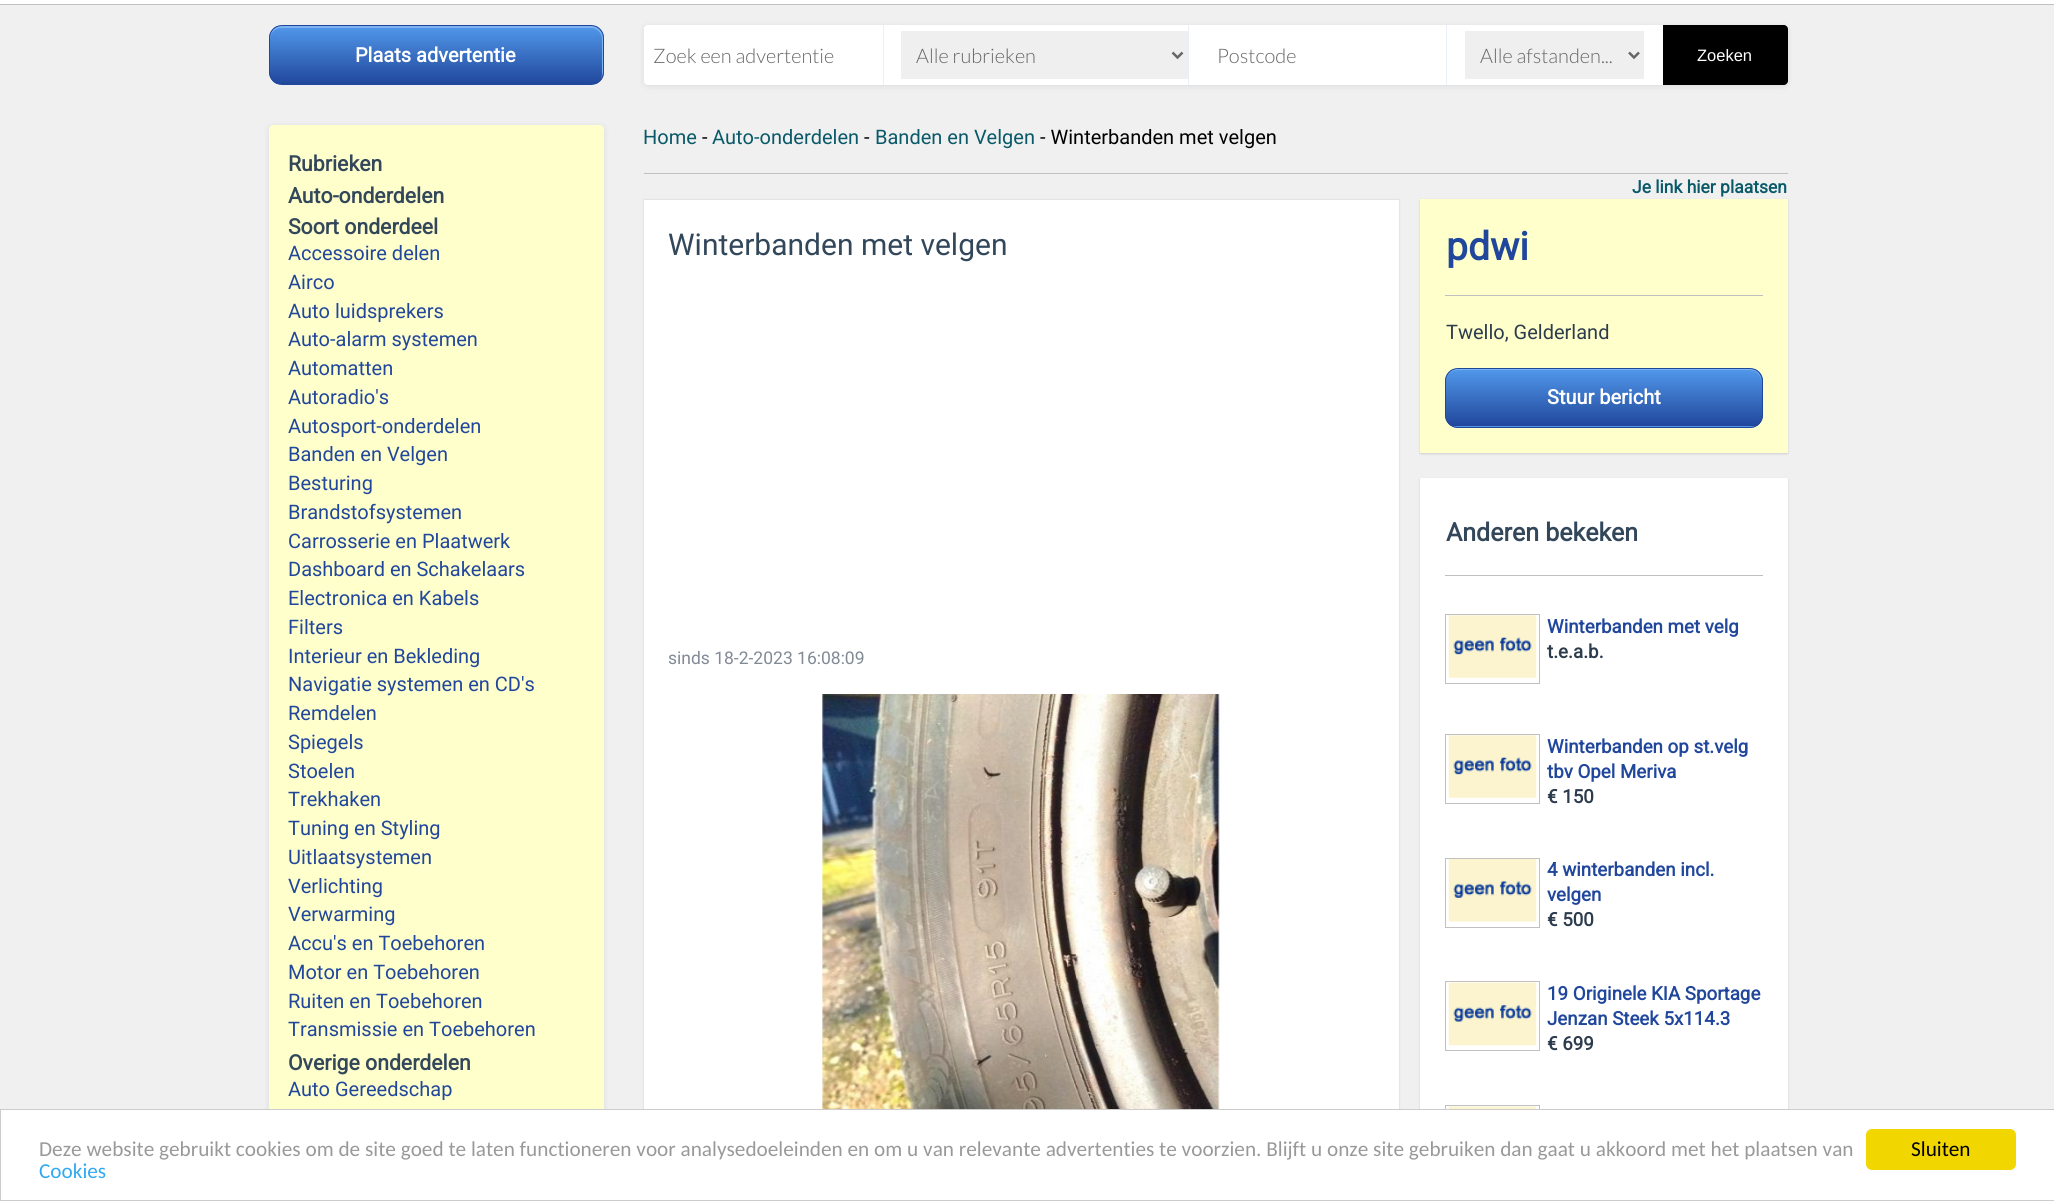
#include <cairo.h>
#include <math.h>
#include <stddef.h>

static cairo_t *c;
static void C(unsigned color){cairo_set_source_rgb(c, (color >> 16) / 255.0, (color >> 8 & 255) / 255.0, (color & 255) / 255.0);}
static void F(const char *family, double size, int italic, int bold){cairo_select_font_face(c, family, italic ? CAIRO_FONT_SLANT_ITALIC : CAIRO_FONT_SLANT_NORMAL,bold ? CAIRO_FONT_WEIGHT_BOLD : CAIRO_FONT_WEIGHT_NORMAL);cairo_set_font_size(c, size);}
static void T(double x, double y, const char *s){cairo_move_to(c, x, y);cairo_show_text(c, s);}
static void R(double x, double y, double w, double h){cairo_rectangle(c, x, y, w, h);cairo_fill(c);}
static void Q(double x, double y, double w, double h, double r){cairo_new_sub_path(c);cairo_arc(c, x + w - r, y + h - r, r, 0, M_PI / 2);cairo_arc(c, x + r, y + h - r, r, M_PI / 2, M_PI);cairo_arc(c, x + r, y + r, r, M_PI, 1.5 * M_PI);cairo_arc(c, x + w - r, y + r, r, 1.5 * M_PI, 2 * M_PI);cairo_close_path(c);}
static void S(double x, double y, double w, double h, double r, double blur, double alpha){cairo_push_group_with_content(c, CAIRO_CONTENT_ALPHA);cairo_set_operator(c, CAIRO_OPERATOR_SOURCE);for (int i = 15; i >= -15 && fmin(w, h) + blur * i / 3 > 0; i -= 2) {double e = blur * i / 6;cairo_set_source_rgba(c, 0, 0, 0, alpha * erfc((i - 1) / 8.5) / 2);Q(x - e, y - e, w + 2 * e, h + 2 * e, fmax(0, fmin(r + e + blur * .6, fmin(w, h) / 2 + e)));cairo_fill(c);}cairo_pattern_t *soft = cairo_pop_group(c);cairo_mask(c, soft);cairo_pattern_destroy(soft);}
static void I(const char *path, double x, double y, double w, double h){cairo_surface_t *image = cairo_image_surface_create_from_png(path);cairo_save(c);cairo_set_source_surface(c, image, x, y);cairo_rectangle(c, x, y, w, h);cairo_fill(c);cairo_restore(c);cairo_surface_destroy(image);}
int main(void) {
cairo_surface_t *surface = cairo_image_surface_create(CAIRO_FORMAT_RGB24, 2054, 1201);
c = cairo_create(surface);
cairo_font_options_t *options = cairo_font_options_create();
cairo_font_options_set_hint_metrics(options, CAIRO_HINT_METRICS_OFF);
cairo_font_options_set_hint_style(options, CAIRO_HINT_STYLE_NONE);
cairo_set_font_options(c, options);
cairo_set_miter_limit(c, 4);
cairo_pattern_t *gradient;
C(0xf0f0f0);
cairo_paint(c);
C(0xffffff);
R(0,0,2054,4);
C(0xc0c0c0);
R(0,4,2054,1);
cairo_save(c);
Q(269,25,335,60,13);
cairo_clip(c);
gradient = cairo_pattern_create_linear(436,26,436,84);
cairo_pattern_add_color_stop_rgba(gradient,0,0.318,0.596,0.918,1);
cairo_pattern_add_color_stop_rgba(gradient,1,0.129,0.278,0.612,1);
cairo_set_source(c,gradient);
cairo_pattern_destroy(gradient);
R(269,26,335,58);
cairo_restore(c);
C(0x7db3f0);
cairo_new_path(c);
cairo_move_to(c,281,28);
cairo_line_to(c,591,28);
cairo_curve_to(c,597,28,602,33,602,39);
cairo_line_to(c,602,74);
cairo_curve_to(c,602,77,601,79,599,81);
cairo_curve_to(c,601,79,603,76,603,73);
cairo_line_to(c,603,37);
cairo_curve_to(c,603,31,598,26,592,26);
cairo_line_to(c,281,26);
cairo_curve_to(c,275,26,270,31,270,37);
cairo_line_to(c,270,39);
cairo_curve_to(c,270,33,275,28,281,28);
cairo_close_path(c);
cairo_fill(c);
Q(269.5,25.5,334,59,12.5);
C(0x21479c);
cairo_set_line_width(c,1);
cairo_stroke(c);
F("Roboto",20,0,1);
C(0xffffff);
T(355,62,"Plaats advertentie");
C(0x2d3e50);
S(644,26,1144,60,4,3,.12);
C(0xffffff);
Q(644,25,1144,60,4);
cairo_fill(c);
cairo_new_path(c);
cairo_move_to(c,648,25);
cairo_line_to(c,884,25);
cairo_line_to(c,884,85);
cairo_line_to(c,648,85);
cairo_curve_to(c,646,85,644,83,644,81);
cairo_line_to(c,644,29);
cairo_curve_to(c,644,27,646,25,648,25);
cairo_close_path(c);
cairo_fill(c);
C(0xeaf0f6);
R(883,25,1,60);
F("Lato Light",20,0,0);
C(0x666666);
T(653,63,"Zoek een advertentie");
C(0xeaf0f6);
R(1188,25,1,60);
C(0xefefef);
R(901,31,287,48);
cairo_new_path(c);
cairo_move_to(c,1172.5,52.5);
cairo_line_to(c,1177.5,57.5);
cairo_line_to(c,1182.5,52.5);
C(0x666666);
cairo_set_line_width(c,2.5);
cairo_stroke(c);
T(916,63,"Alle rubrieken");
C(0xeaf0f6);
R(1446,25,1,60);
C(0x666666);
T(1217,63,"Postcode");
C(0xefefef);
R(1465,31,179,48);
cairo_new_path(c);
cairo_move_to(c,1629,52.5);
cairo_line_to(c,1634,57.5);
cairo_line_to(c,1639,52.5);
C(0x666666);
cairo_stroke(c);
T(1480,63,"Alle afstanden...");
C(0x000000);
cairo_new_path(c);
cairo_move_to(c,1663,25);
cairo_line_to(c,1784,25);
cairo_curve_to(c,1786,25,1788,27,1788,29);
cairo_line_to(c,1788,81);
cairo_curve_to(c,1788,83,1786,85,1784,85);
cairo_line_to(c,1663,85);
cairo_close_path(c);
cairo_fill(c);
F("Liberation Sans",16.5,0,0);
C(0xffffff);
T(1697,61,"Zoeken");
C(0x2d3e50);
S(269,126,335,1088,4,3,.12);
C(0xffffcc);
Q(269,125,335,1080,4);
cairo_fill(c);
F("Roboto",21.25,0,1);
C(0x33475b);
T(288,171,"Rubrieken");
T(288,203,"Auto-onderdelen");
T(288,234,"Soort onderdeel");
F("Roboto",20,0,0);
C(0x21479c);
T(288,260,"Accessoire delen");
T(288,289,"Airco");
T(288,318,"Auto luidsprekers");
T(288,346,"Auto-alarm systemen");
T(288,375,"Automatten");
T(288,404,"Autoradio's");
T(288,433,"Autosport-onderdelen");
T(288,461,"Banden en Velgen");
T(288,490,"Besturing");
T(288,519,"Brandstofsystemen");
T(288,548,"Carrosserie en Plaatwerk");
T(288,576,"Dashboard en Schakelaars");
T(288,605,"Electronica en Kabels");
T(288,634,"Filters");
T(288,663,"Interieur en Bekleding");
T(288,691,"Navigatie systemen en CD's");
T(288,720,"Remdelen");
T(288,749,"Spiegels");
T(288,778,"Stoelen");
T(288,806,"Trekhaken");
T(288,835,"Tuning en Styling");
T(288,864,"Uitlaatsystemen");
T(288,893,"Verlichting");
T(288,921,"Verwarming");
T(288,950,"Accu's en Toebehoren");
T(288,979,"Motor en Toebehoren");
T(288,1008,"Ruiten en Toebehoren");
T(288,1036,"Transmissie en Toebehoren");
F("Roboto",21.25,0,1);
C(0x33475b);
T(288,1070,"Overige onderdelen");
F("Roboto",20,0,0);
C(0x21479c);
T(288,1096,"Auto Gereedschap");
C(0x095969);
T(643,144,"Home");
C(0x000000);
T(702,144,"-");
C(0x095969);
T(712,144,"Auto-onderdelen");
C(0x000000);
T(864,144,"-");
C(0x095969);
T(875,144,"Banden en Velgen");
C(0x000000);
T(1040,144,"- Winterbanden met velgen");
C(0xc0c0c0);
R(644,173,1144,1);
F("Roboto",17.5,0,1);
C(0x095969);
T(1632,193,"Je link hier plaatsen");
C(0x000000);
S(644,200,755,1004,0,1,.14);
C(0xffffff);
R(644,200,755,909);
C(0xe6e4e1);
R(644,199,755,1);
F("Roboto",30,0,0);
C(0x33475b);
T(668,255,"Winterbanden met velgen");
F("Roboto",17.5,0,0);
C(0x818a95);
T(668,664,"sinds 18-2-2023 16:08:09");
I("1.png",822,694,398,415);
C(0x000000);
S(1420,200,368,254,0,1,.14);
C(0xffffcc);
R(1420,199,368,254);
C(0xc0c0c0);
R(1445,295,318,1);
F("Roboto",39,0,1);
C(0x21479c);
T(1446,260,"pdwi");
F("Roboto",20,0,0);
C(0x2d3c4d);
T(1446,339,"Twello, Gelderland");
cairo_save(c);
Q(1445,368,318,60,13);
cairo_clip(c);
gradient = cairo_pattern_create_linear(1604,369,1604,426);
cairo_pattern_add_color_stop_rgba(gradient,0,0.318,0.596,0.918,1);
cairo_pattern_add_color_stop_rgba(gradient,1,0.129,0.278,0.612,1);
cairo_set_source(c,gradient);
cairo_pattern_destroy(gradient);
R(1445,369,318,57);
gradient = cairo_pattern_create_linear(1604,426,1604,484);
cairo_pattern_add_color_stop_rgba(gradient,0,0.318,0.596,0.918,1);
cairo_pattern_add_color_stop_rgba(gradient,1,0.129,0.278,0.612,1);
cairo_set_source(c,gradient);
cairo_pattern_destroy(gradient);
R(1445,426,318,2);
cairo_restore(c);
C(0x7db3f0);
cairo_new_path(c);
cairo_move_to(c,1458,370);
cairo_line_to(c,1750,370);
cairo_curve_to(c,1756,370,1761,375,1761,381);
cairo_line_to(c,1761,380);
cairo_curve_to(c,1761,374,1756,369,1750,369);
cairo_line_to(c,1457,369);
cairo_curve_to(c,1451,369,1446,374,1446,380);
cairo_line_to(c,1446,381);
cairo_curve_to(c,1446,375,1451,370,1458,370);
cairo_close_path(c);
cairo_fill(c);
Q(1445.5,368.5,317,59,12.5);
C(0x21479c);
cairo_set_line_width(c,1);
cairo_stroke(c);
F("Roboto",20,0,1);
C(0xffffff);
T(1547,404,"Stuur bericht");
C(0x000000);
S(1420,479,368,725,0,1,.14);
C(0xffffff);
R(1420,478,368,631);
C(0xc0c0c0);
R(1445,575,318,1);
F("Roboto",25,0,1);
C(0x33475b);
T(1446,541,"Anderen bekeken");
cairo_rectangle(c,1445.5,614.5,94,69);
C(0xc0c0c0);
cairo_stroke(c);
I("2.png",1448,615,89,63);
F("Roboto",18.75,0,1);
C(0x21479c);
T(1547,633,"Winterbanden met velg");
C(0x2d3c4d);
T(1547,658,"t.e.a.b.");
cairo_rectangle(c,1445.5,734.5,94,69);
C(0xc0c0c0);
cairo_stroke(c);
I("2.png",1448,735,89,63);
C(0x21479c);
T(1547,753,"Winterbanden op st.velg");
T(1547,778,"tbv Opel Meriva");
C(0x2d3c4d);
T(1547,803,"€ 150");
cairo_rectangle(c,1445.5,858.5,94,69);
C(0xc0c0c0);
cairo_stroke(c);
I("3.png",1448,859,89,63);
C(0x21479c);
T(1547,876,"4 winterbanden incl.");
T(1547,901,"velgen");
C(0x2d3c4d);
T(1547,926,"€ 500");
cairo_rectangle(c,1445.5,981.5,94,69);
C(0xc0c0c0);
cairo_stroke(c);
I("4.png",1448,982,89,64);
C(0x21479c);
T(1547,1000,"19 Originele KIA Sportage");
T(1547,1025,"Jenzan Steek 5x114.3");
C(0x2d3c4d);
T(1547,1050,"€ 699");
cairo_rectangle(c,1445.5,1105.5,94,69);
C(0xc0c0c0);
cairo_stroke(c);
I("5.png",1448,1106,89,3);
C(0xffffff);
cairo_rectangle(c,.5,1109.5,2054,91);
cairo_fill_preserve(c);
C(0xcccccc);
cairo_stroke(c);
F("Carlito",21.25,0,0);
C(0x999999);
T(39,1156,"Deze website gebruikt cookies om de site goed te laten functioneren voor analysedoeleinden en om u van relevante advertenties te voorzien. Blijft u onze site gebruiken dan gaat u akkoord met het plaatsen van");
C(0x31a8f0);
T(39,1178,"Cookies");
C(0xf1d600);
Q(1866,1129,150,41,6);
cairo_fill(c);
C(0x000000);
T(1911,1156,"Sluiten");
cairo_surface_write_to_png(surface, "o.png");
cairo_font_options_destroy(options);
cairo_destroy(c);
cairo_surface_destroy(surface);
return 0;
}
